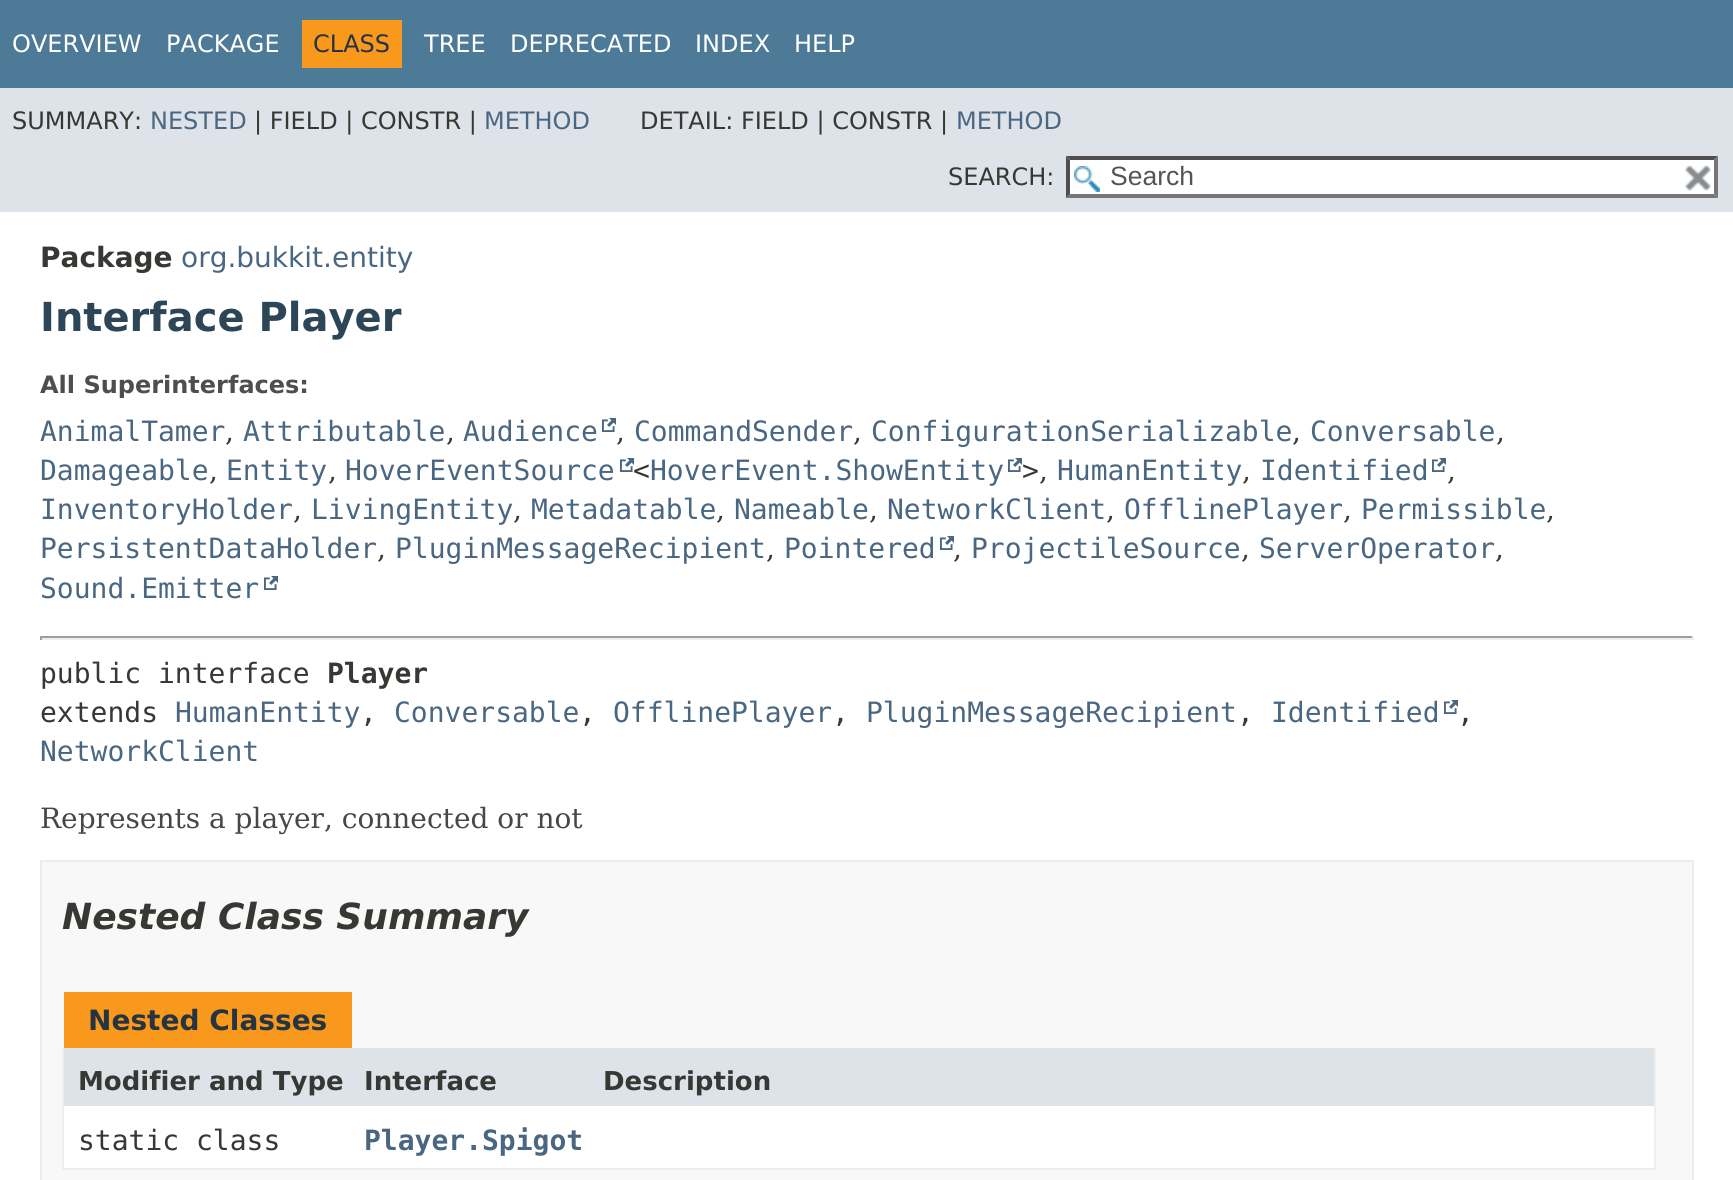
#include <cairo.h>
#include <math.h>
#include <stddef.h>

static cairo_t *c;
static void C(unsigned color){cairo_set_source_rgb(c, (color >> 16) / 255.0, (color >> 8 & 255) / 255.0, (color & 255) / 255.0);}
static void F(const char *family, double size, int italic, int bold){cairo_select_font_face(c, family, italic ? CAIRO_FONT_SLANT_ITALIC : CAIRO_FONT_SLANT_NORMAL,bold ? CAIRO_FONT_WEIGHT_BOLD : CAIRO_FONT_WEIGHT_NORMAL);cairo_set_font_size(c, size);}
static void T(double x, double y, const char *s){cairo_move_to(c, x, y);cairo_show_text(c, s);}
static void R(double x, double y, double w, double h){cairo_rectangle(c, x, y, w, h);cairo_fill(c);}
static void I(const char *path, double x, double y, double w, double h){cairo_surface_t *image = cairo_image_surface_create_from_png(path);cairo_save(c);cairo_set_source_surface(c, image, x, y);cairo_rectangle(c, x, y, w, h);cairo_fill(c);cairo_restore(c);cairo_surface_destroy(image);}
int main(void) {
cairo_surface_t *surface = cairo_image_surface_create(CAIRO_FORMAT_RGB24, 1733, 1180);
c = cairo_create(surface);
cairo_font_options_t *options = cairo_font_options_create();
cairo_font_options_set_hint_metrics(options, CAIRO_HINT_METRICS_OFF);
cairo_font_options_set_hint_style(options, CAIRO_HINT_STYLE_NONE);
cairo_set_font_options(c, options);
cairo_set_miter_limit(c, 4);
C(0xffffff);
cairo_paint(c);
C(0x4d7a97);
R(0,0,1733,88);
F("DejaVu Sans",24,0,0);
C(0xffffff);
T(12,52,"OVERVIEW");
T(166,52,"PACKAGE");
C(0xf8981d);
R(302,20,100,48);
C(0x253441);
T(313,52,"CLASS");
C(0xffffff);
T(424,52,"TREE");
T(510,52,"DEPRECATED");
T(695,52,"INDEX");
T(794,52,"HELP");
C(0xdee3e9);
R(0,88,1733,124);
C(0x353833);
T(12,129,"SUMMARY:");
C(0x4a6782);
T(150,129,"NESTED");
C(0x353833);
T(254,129,"| FIELD | CONSTR |");
C(0x4a6782);
T(484,129,"METHOD");
C(0x353833);
T(640,129,"DETAIL: FIELD | CONSTR |");
C(0x4a6782);
T(956,129,"METHOD");
C(0x353833);
T(948,185,"SEARCH:");
C(0xffffff);
R(1066,156,652,42);
I("1.png",1074,166,26,26);
C(0x4f4f4f);
cairo_new_path(c);
cairo_move_to(c,1066,156);
cairo_line_to(c,1718,156);
cairo_line_to(c,1714,160);
cairo_line_to(c,1070,160);
cairo_close_path(c);
cairo_fill(c);
C(0x767676);
cairo_new_path(c);
cairo_move_to(c,1718,156);
cairo_line_to(c,1718,198);
cairo_line_to(c,1714,194);
cairo_line_to(c,1714,160);
cairo_close_path(c);
cairo_fill(c);
cairo_new_path(c);
cairo_move_to(c,1718,198);
cairo_line_to(c,1066,198);
cairo_line_to(c,1070,194);
cairo_line_to(c,1714,194);
cairo_close_path(c);
cairo_fill(c);
C(0x4f4f4f);
cairo_new_path(c);
cairo_move_to(c,1066,198);
cairo_line_to(c,1066,156);
cairo_line_to(c,1070,160);
cairo_line_to(c,1070,194);
cairo_close_path(c);
cairo_fill(c);
F("Liberation Sans",26.5,0,0);
C(0x545454);
T(1110,185,"Search");
I("2.png",1684,165,27,26);
F("DejaVu Sans",28,0,1);
C(0x353833);
T(40,267,"Package");
F("DejaVu Sans",28,0,0);
C(0x4a6782);
T(181,267,"org.bukkit.entity");
F("DejaVu Sans",40,0,1);
C(0x2c4557);
T(40,331,"Interface Player");
F("DejaVu Sans",24,0,1);
C(0x4e4e4e);
T(40,393,"All Superinterfaces:");
F("DejaVu Sans Mono",28,0,0);
C(0x4a6782);
T(40,441,"AnimalTamer");
F("DejaVu Serif",28,0,0);
C(0x353833);
T(225,441,",");
F("DejaVu Sans Mono",28,0,0);
C(0x4a6782);
T(243,441,"Attributable");
F("DejaVu Serif",28,0,0);
C(0x353833);
T(446,441,",");
F("DejaVu Sans Mono",28,0,0);
C(0x4a6782);
T(463,441,"Audience");
I("3.png",602,418,14,14);
F("DejaVu Serif",28,0,0);
C(0x353833);
T(616,441,",");
F("DejaVu Sans Mono",28,0,0);
C(0x4a6782);
T(634,441,"CommandSender");
F("DejaVu Serif",28,0,0);
C(0x353833);
T(853,441,",");
F("DejaVu Sans Mono",28,0,0);
C(0x4a6782);
T(871,441,"ConfigurationSerializable");
F("DejaVu Serif",28,0,0);
C(0x353833);
T(1292,441,",");
F("DejaVu Sans Mono",28,0,0);
C(0x4a6782);
T(1310,441,"Conversable");
F("DejaVu Serif",28,0,0);
C(0x353833);
T(1496,441,",");
F("DejaVu Sans Mono",28,0,0);
C(0x4a6782);
T(40,480,"Damageable");
F("DejaVu Serif",28,0,0);
C(0x353833);
T(209,480,",");
F("DejaVu Sans Mono",28,0,0);
C(0x4a6782);
T(226,480,"Entity");
F("DejaVu Serif",28,0,0);
C(0x353833);
T(328,480,",");
F("DejaVu Sans Mono",28,0,0);
C(0x4a6782);
T(345,480,"HoverEventSource");
I("3.png",620,458,14,14);
C(0x353833);
T(633,480,"<");
C(0x4a6782);
T(650,480,"HoverEvent.ShowEntity");
I("3.png",1008,458,14,14);
C(0x353833);
T(1022,480,">");
F("DejaVu Serif",28,0,0);
T(1039,480,",");
F("DejaVu Sans Mono",28,0,0);
C(0x4a6782);
T(1057,480,"HumanEntity");
F("DejaVu Serif",28,0,0);
C(0x353833);
T(1242,480,",");
F("DejaVu Sans Mono",28,0,0);
C(0x4a6782);
T(1260,480,"Identified");
I("3.png",1432,458,14,14);
F("DejaVu Serif",28,0,0);
C(0x353833);
T(1447,480,",");
F("DejaVu Sans Mono",28,0,0);
C(0x4a6782);
T(40,519,"InventoryHolder");
F("DejaVu Serif",28,0,0);
C(0x353833);
T(293,519,",");
F("DejaVu Sans Mono",28,0,0);
C(0x4a6782);
T(311,519,"LivingEntity");
F("DejaVu Serif",28,0,0);
C(0x353833);
T(513,519,",");
F("DejaVu Sans Mono",28,0,0);
C(0x4a6782);
T(531,519,"Metadatable");
F("DejaVu Serif",28,0,0);
C(0x353833);
T(716,519,",");
F("DejaVu Sans Mono",28,0,0);
C(0x4a6782);
T(734,519,"Nameable");
F("DejaVu Serif",28,0,0);
C(0x353833);
T(869,519,",");
F("DejaVu Sans Mono",28,0,0);
C(0x4a6782);
T(887,519,"NetworkClient");
F("DejaVu Serif",28,0,0);
C(0x353833);
T(1106,519,",");
F("DejaVu Sans Mono",28,0,0);
C(0x4a6782);
T(1124,519,"OfflinePlayer");
F("DejaVu Serif",28,0,0);
C(0x353833);
T(1343,519,",");
F("DejaVu Sans Mono",28,0,0);
C(0x4a6782);
T(1361,519,"Permissible");
F("DejaVu Serif",28,0,0);
C(0x353833);
T(1546,519,",");
F("DejaVu Sans Mono",28,0,0);
C(0x4a6782);
T(40,558,"PersistentDataHolder");
F("DejaVu Serif",28,0,0);
C(0x353833);
T(377,558,",");
F("DejaVu Sans Mono",28,0,0);
C(0x4a6782);
T(395,558,"PluginMessageRecipient");
F("DejaVu Serif",28,0,0);
C(0x353833);
T(766,558,",");
F("DejaVu Sans Mono",28,0,0);
C(0x4a6782);
T(784,558,"Pointered");
I("3.png",940,536,14,14);
F("DejaVu Serif",28,0,0);
C(0x353833);
T(953,558,",");
F("DejaVu Sans Mono",28,0,0);
C(0x4a6782);
T(971,558,"ProjectileSource");
F("DejaVu Serif",28,0,0);
C(0x353833);
T(1241,558,",");
F("DejaVu Sans Mono",28,0,0);
C(0x4a6782);
T(1259,558,"ServerOperator");
F("DejaVu Serif",28,0,0);
C(0x353833);
T(1495,558,",");
F("DejaVu Sans Mono",28,0,0);
C(0x4a6782);
T(40,598,"Sound.Emitter");
I("3.png",264,576,14,14);
C(0x9f9f9f);
R(40,636,1654,2);
C(0xeeeeee);
R(1692,636,2,4);
R(40,638,1654,2);
C(0x9f9f9f);
R(40,636,2,4);
C(0x353833);
T(40,683,"public interface");
F("DejaVu Sans Mono",28,0,1);
T(327,683,"Player");
F("DejaVu Sans Mono",28,0,0);
T(40,722,"extends");
C(0x4a6782);
T(175,722,"HumanEntity");
C(0x353833);
T(360,722,",");
C(0x4a6782);
T(394,722,"Conversable");
C(0x353833);
T(579,722,",");
C(0x4a6782);
T(613,722,"OfflinePlayer");
C(0x353833);
T(832,722,",");
C(0x4a6782);
T(866,722,"PluginMessageRecipient");
C(0x353833);
T(1237,722,",");
C(0x4a6782);
T(1271,722,"Identified");
I("3.png",1444,700,14,14);
C(0x353833);
T(1457,722,",");
C(0x4a6782);
T(40,761,"NetworkClient");
F("DejaVu Serif",28,0,0);
C(0x474747);
T(40,828,"Represents a player, connected or not");
C(0xf8f8f8);
cairo_rectangle(c,41,861,1652,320);
cairo_fill_preserve(c);
C(0xededed);
cairo_stroke(c);
F("DejaVu Sans",36,1,1);
C(0x353833);
T(62,929,"Nested Class Summary");
C(0xf8981d);
R(64,992,288,56);
F("DejaVu Sans",28,0,1);
C(0x253441);
T(88,1030,"Nested Classes");
C(0xeeeeee);
R(1654,1048,2,122);
R(62,1168,1594,2);
R(62,1048,2,122);
C(0xdee3e9);
R(64,1048,524,58);
F("DejaVu Sans",26,0,1);
C(0x353833);
T(78,1090,"Modifier and Type");
T(364,1090,"Interface");
C(0xdee3e9);
R(588,1048,1066,58);
C(0x353833);
T(603,1090,"Description");
C(0xffffff);
R(64,1106,524,62);
F("DejaVu Sans Mono",28,0,0);
C(0x353833);
T(78,1150,"static class");
F("DejaVu Sans Mono",28,0,1);
C(0x4a6782);
T(364,1150,"Player.Spigot");
C(0xffffff);
R(588,1106,1066,62);
cairo_surface_write_to_png(surface, "o.png");
cairo_font_options_destroy(options);
cairo_destroy(c);
cairo_surface_destroy(surface);
return 0;
}
